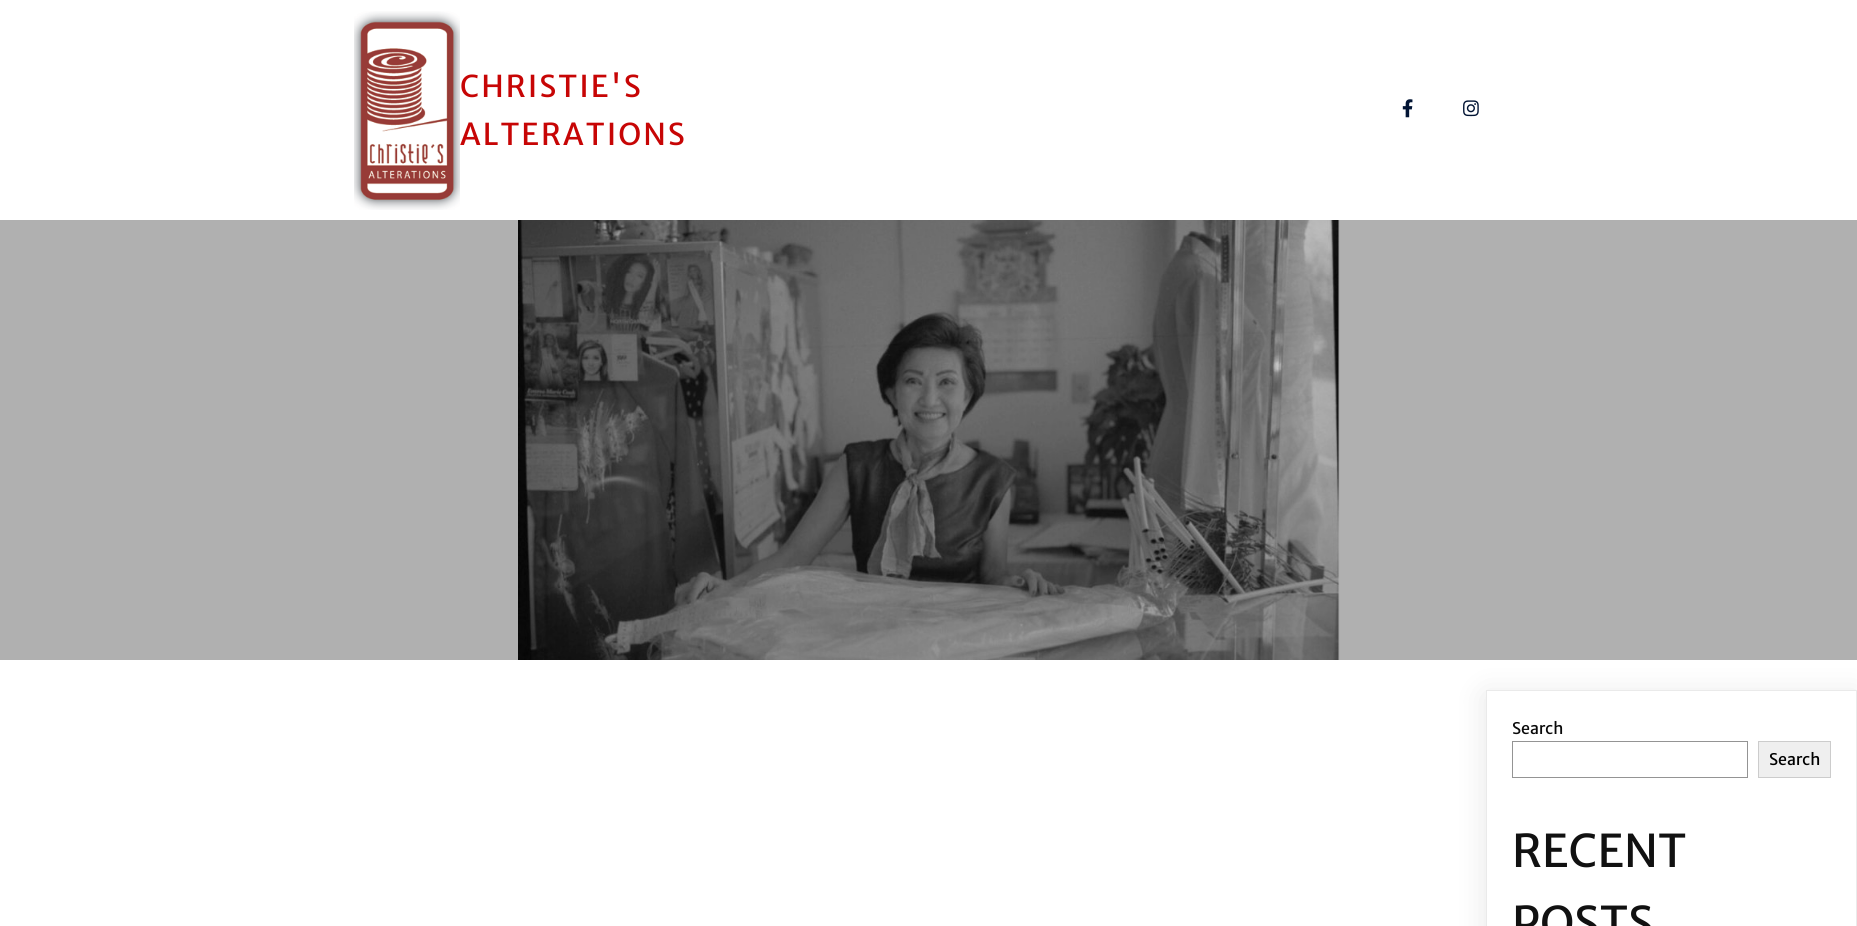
#include <cairo.h>
#include <math.h>
#include <stddef.h>

static cairo_t *c;
static void C(unsigned color){cairo_set_source_rgb(c, (color >> 16) / 255.0, (color >> 8 & 255) / 255.0, (color & 255) / 255.0);}
static void F(const char *family, double size, int italic, int bold){cairo_select_font_face(c, family, italic ? CAIRO_FONT_SLANT_ITALIC : CAIRO_FONT_SLANT_NORMAL,bold ? CAIRO_FONT_WEIGHT_BOLD : CAIRO_FONT_WEIGHT_NORMAL);cairo_set_font_size(c, size);}
static void T(double x, double y, const char *s){cairo_move_to(c, x, y);cairo_show_text(c, s);}
static void L(double x, double y, const char *s, double letter, double word){cairo_move_to(c, x, y);while (*s) {char ch[5] = {0};int n = 0;do ch[n++] = *s++; while ((*s & 0xC0) == 0x80);cairo_show_text(c, ch);cairo_rel_move_to(c, letter + word * (*ch == ' '), 0);}}
static void R(double x, double y, double w, double h){cairo_rectangle(c, x, y, w, h);cairo_fill(c);}
static void Q(double x, double y, double w, double h, double r){cairo_new_sub_path(c);cairo_arc(c, x + w - r, y + h - r, r, 0, M_PI / 2);cairo_arc(c, x + r, y + h - r, r, M_PI / 2, M_PI);cairo_arc(c, x + r, y + r, r, M_PI, 1.5 * M_PI);cairo_arc(c, x + w - r, y + r, r, 1.5 * M_PI, 2 * M_PI);cairo_close_path(c);}
static void S(double x, double y, double w, double h, double r, double blur, double alpha){cairo_push_group_with_content(c, CAIRO_CONTENT_ALPHA);cairo_set_operator(c, CAIRO_OPERATOR_SOURCE);for (int i = 15; i >= -15 && fmin(w, h) + blur * i / 3 > 0; i -= 2) {double e = blur * i / 6;cairo_set_source_rgba(c, 0, 0, 0, alpha * erfc((i - 1) / 8.5) / 2);Q(x - e, y - e, w + 2 * e, h + 2 * e, fmax(0, fmin(r + e + blur * .6, fmin(w, h) / 2 + e)));cairo_fill(c);}cairo_pattern_t *soft = cairo_pop_group(c);cairo_mask(c, soft);cairo_pattern_destroy(soft);}
static void I(const char *path, double x, double y, double w, double h){cairo_surface_t *image = cairo_image_surface_create_from_png(path);cairo_save(c);cairo_set_source_surface(c, image, x, y);cairo_rectangle(c, x, y, w, h);cairo_fill(c);cairo_restore(c);cairo_surface_destroy(image);}
int main(void) {
cairo_surface_t *surface = cairo_image_surface_create(CAIRO_FORMAT_RGB24, 1857, 926);
c = cairo_create(surface);
cairo_font_options_t *options = cairo_font_options_create();
cairo_font_options_set_hint_metrics(options, CAIRO_HINT_METRICS_OFF);
cairo_font_options_set_hint_style(options, CAIRO_HINT_STYLE_NONE);
cairo_set_font_options(c, options);
cairo_set_miter_limit(c, 4);
C(0xffffff);
cairo_paint(c);
I("1.png",354,11,106,199);
F("Merriweather Sans",30,0,0);
C(0xc70505);
L(460,97,"CHRISTIE'S",2,0);
L(460,145,"ALTERATIONS",2,0);
I("2.png",1402,99,11,19);
I("3.png",1463,100,16,17);
cairo_save(c);
cairo_set_fill_rule(c,CAIRO_FILL_RULE_EVEN_ODD);
cairo_new_path(c);
cairo_move_to(c,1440,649);
cairo_line_to(c,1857,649);
cairo_line_to(c,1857,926);
cairo_line_to(c,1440,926);
cairo_close_path(c);
cairo_move_to(c,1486,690);
cairo_line_to(c,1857,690);
cairo_line_to(c,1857,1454);
cairo_line_to(c,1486,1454);
cairo_close_path(c);
cairo_clip(c);
C(0x000000);
S(1486,695,371,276,0,15,.1);
cairo_restore(c);
C(0xb0b0b0);
R(0,220,1857,440);
I("4.png",518,220,822,440);
cairo_rectangle(c,1486.5,690.5,370,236);
C(0xeaeaea);
cairo_set_line_width(c,1);
cairo_stroke(c);
F("Merriweather Sans",16,0,0);
C(0x0a0a0a);
T(1512,734,"Search");
cairo_rectangle(c,1512.5,741.5,235,36);
C(0x949494);
cairo_stroke(c);
C(0xefefef);
cairo_rectangle(c,1758.5,741.5,72,36);
cairo_fill_preserve(c);
C(0xcccccc);
cairo_stroke(c);
C(0x000000);
T(1769,765,"Search");
F("Merriweather Sans",45,0,0);
C(0x111111);
T(1512,867,"RECENT");
T(1512,939,"POSTS");
cairo_surface_write_to_png(surface, "o.png");
cairo_font_options_destroy(options);
cairo_destroy(c);
cairo_surface_destroy(surface);
return 0;
}
